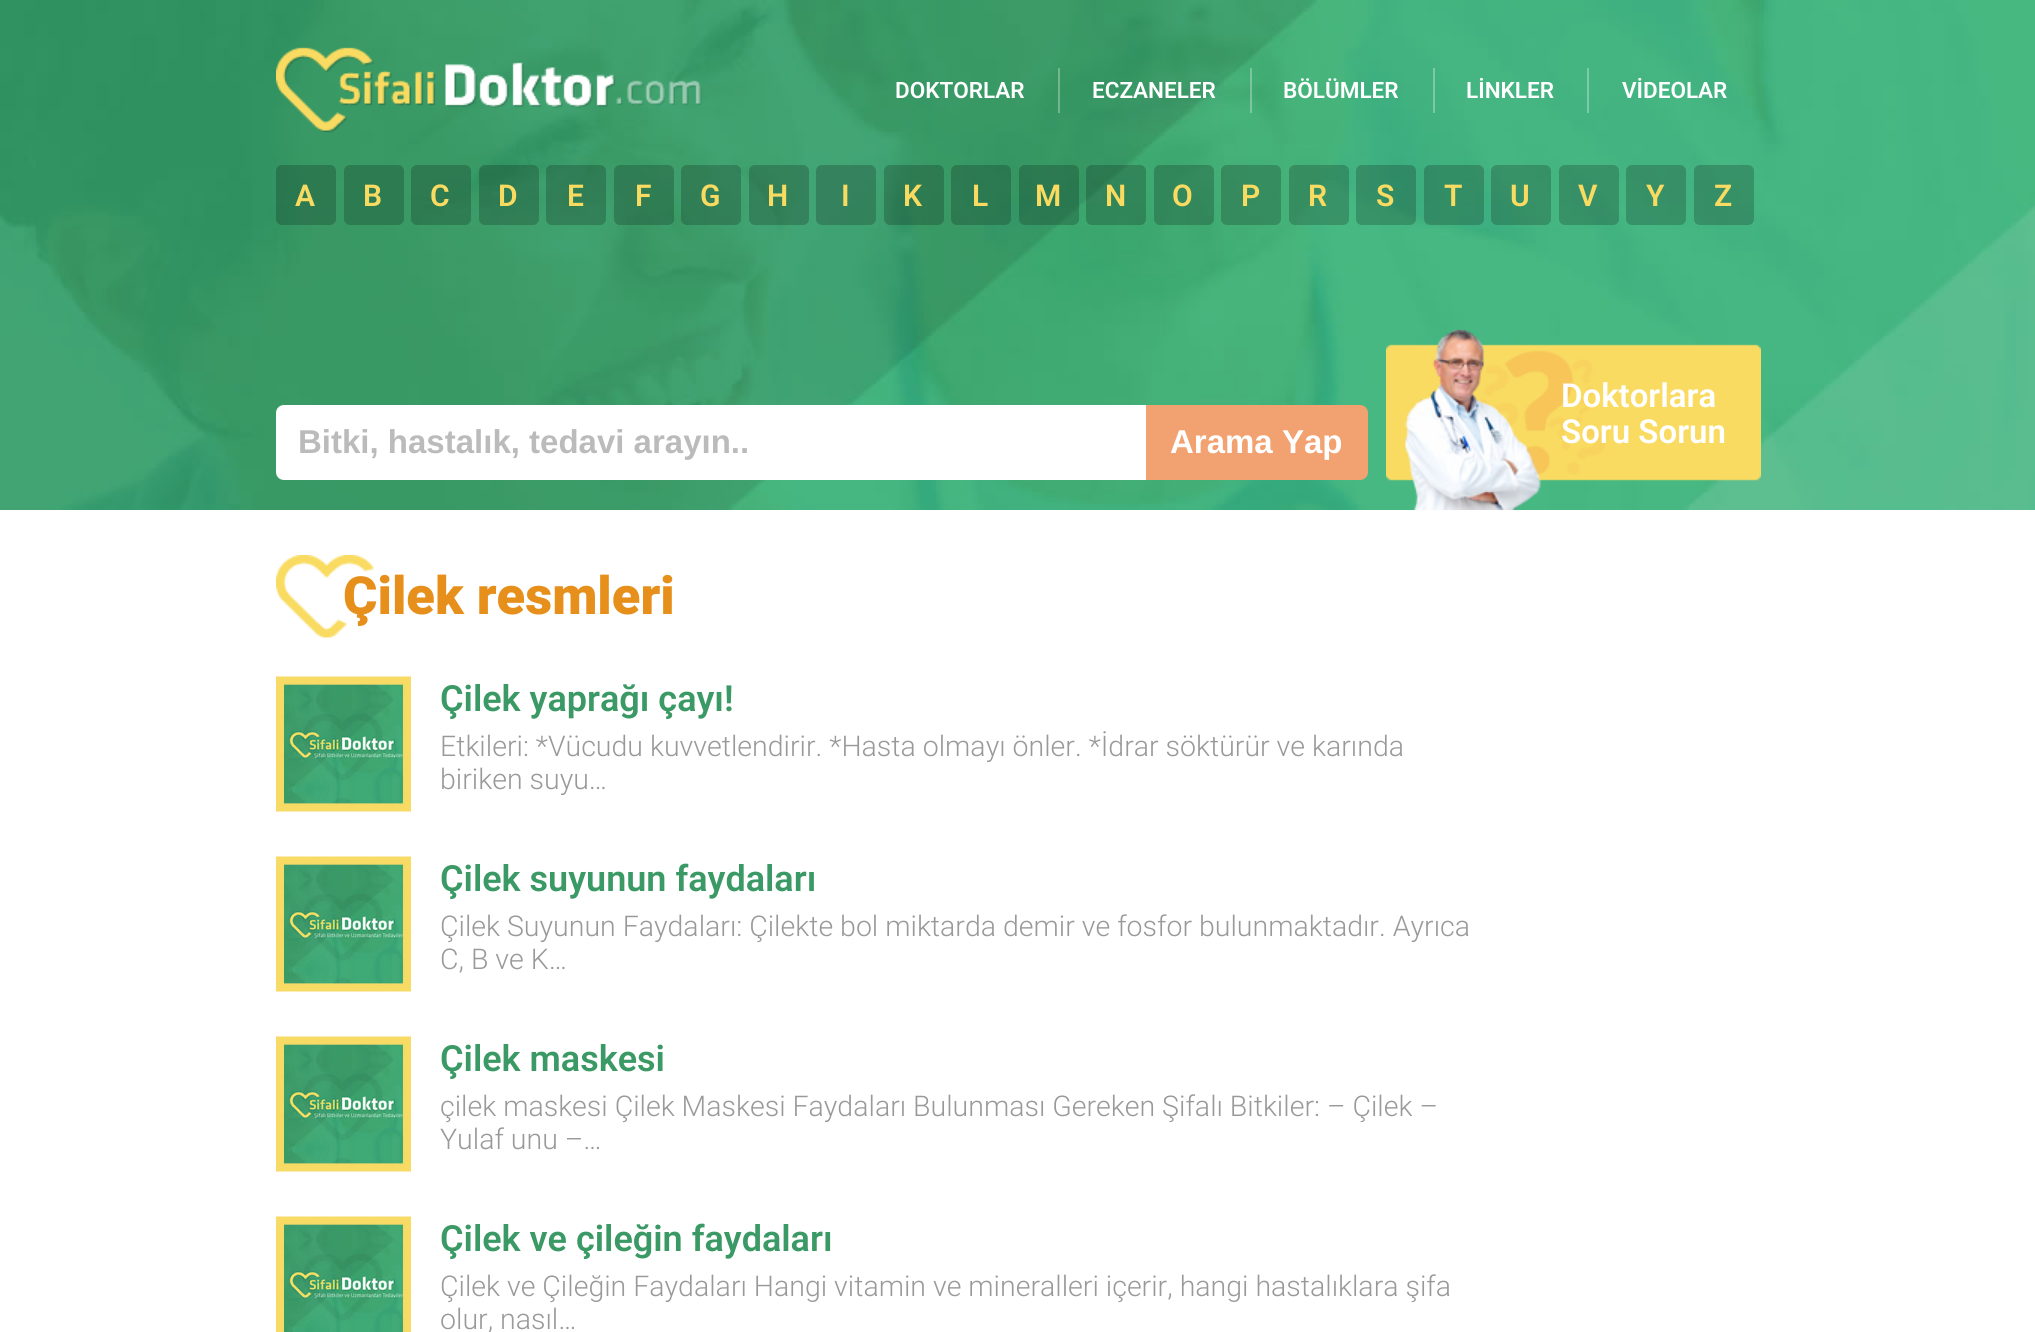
#include <cairo.h>
#include <math.h>
#include <stddef.h>

static cairo_t *c;
static void C(unsigned color){cairo_set_source_rgb(c, (color >> 16) / 255.0, (color >> 8 & 255) / 255.0, (color & 255) / 255.0);}
static void F(const char *family, double size, int italic, int bold){cairo_select_font_face(c, family, italic ? CAIRO_FONT_SLANT_ITALIC : CAIRO_FONT_SLANT_NORMAL,bold ? CAIRO_FONT_WEIGHT_BOLD : CAIRO_FONT_WEIGHT_NORMAL);cairo_set_font_size(c, size);}
static void T(double x, double y, const char *s){cairo_move_to(c, x, y);cairo_show_text(c, s);}
static void R(double x, double y, double w, double h){cairo_rectangle(c, x, y, w, h);cairo_fill(c);}
static void Q(double x, double y, double w, double h, double r){cairo_new_sub_path(c);cairo_arc(c, x + w - r, y + h - r, r, 0, M_PI / 2);cairo_arc(c, x + r, y + h - r, r, M_PI / 2, M_PI);cairo_arc(c, x + r, y + r, r, M_PI, 1.5 * M_PI);cairo_arc(c, x + w - r, y + r, r, 1.5 * M_PI, 2 * M_PI);cairo_close_path(c);}
static void I(const char *path, double x, double y, double w, double h){cairo_surface_t *image = cairo_image_surface_create_from_png(path);cairo_save(c);cairo_set_source_surface(c, image, x, y);cairo_rectangle(c, x, y, w, h);cairo_fill(c);cairo_restore(c);cairo_surface_destroy(image);}
int main(void) {
cairo_surface_t *surface = cairo_image_surface_create(CAIRO_FORMAT_RGB24, 2035, 1332);
c = cairo_create(surface);
cairo_font_options_t *options = cairo_font_options_create();
cairo_font_options_set_hint_metrics(options, CAIRO_HINT_METRICS_OFF);
cairo_font_options_set_hint_style(options, CAIRO_HINT_STYLE_NONE);
cairo_set_font_options(c, options);
cairo_set_miter_limit(c, 4);
C(0xffffff);
cairo_paint(c);
I("1.png",0,0,2035,510);
I("2.png",276,47,426,86);
F("Roboto SemiBold",22.5,0,0);
C(0xffffff);
T(895,98,"DOKTORLAR");
cairo_set_source_rgba(c,1,1,1,0.3);
R(1058,68,2,45);
C(0xffffff);
T(1092,98,"ECZANELER");
cairo_set_source_rgba(c,1,1,1,0.3);
R(1250,68,2,45);
C(0xffffff);
T(1283,98,"BÖLÜMLER");
C(0x7bc9a6);
R(1433,68,2,45);
C(0xffffff);
T(1466,98,"LİNKLER");
C(0x7ccaa7);
R(1587,68,2,45);
C(0xffffff);
T(1622,98,"VİDEOLAR");
cairo_set_source_rgba(c,0,0,0,0.2);
Q(276,165,60,60,6);
cairo_fill(c);
F("Roboto SemiBold",30,0,0);
C(0xf9db62);
T(295,206,"A");
C(0x2d7b51);
Q(344,165,60,60,6);
cairo_fill(c);
C(0xf9db62);
T(363,206,"B");
cairo_set_source_rgba(c,0,0,0,0.2);
Q(411,165,60,60,6);
cairo_fill(c);
C(0xf9db62);
T(430,206,"C");
cairo_set_source_rgba(c,0,0,0,0.2);
Q(479,165,60,60,6);
cairo_fill(c);
C(0xf9db62);
T(498,206,"D");
cairo_set_source_rgba(c,0,0,0,0.2);
Q(546,165,60,60,6);
cairo_fill(c);
C(0xf9db62);
T(567,206,"E");
cairo_set_source_rgba(c,0,0,0,0.2);
Q(614,165,60,60,6);
cairo_fill(c);
C(0xf9db62);
T(635,206,"F");
cairo_set_source_rgba(c,0,0,0,0.2);
Q(681,165,60,60,6);
cairo_fill(c);
C(0xf9db62);
T(700,206,"G");
cairo_set_source_rgba(c,0,0,0,0.2);
Q(749,165,60,60,6);
cairo_fill(c);
C(0xf9db62);
T(767,206,"H");
cairo_set_source_rgba(c,0,0,0,0.2);
Q(816,165,60,60,6);
cairo_fill(c);
C(0xf9db62);
T(841,206,"I");
cairo_set_source_rgba(c,0,0,0,0.2);
Q(884,165,60,60,6);
cairo_fill(c);
C(0xf9db62);
T(903,206,"K");
cairo_set_source_rgba(c,0,0,0,0.2);
Q(951,165,60,60,6);
cairo_fill(c);
C(0xf9db62);
T(972,206,"L");
cairo_set_source_rgba(c,0,0,0,0.2);
Q(1019,165,60,60,6);
cairo_fill(c);
C(0xf9db62);
T(1035,206,"M");
cairo_set_source_rgba(c,0,0,0,0.2);
Q(1086,165,60,60,6);
cairo_fill(c);
C(0xf9db62);
T(1105,206,"N");
cairo_set_source_rgba(c,0,0,0,0.2);
Q(1154,165,60,60,6);
cairo_fill(c);
C(0xf9db62);
T(1172,206,"O");
cairo_set_source_rgba(c,0,0,0,0.2);
Q(1221,165,60,60,6);
cairo_fill(c);
C(0xf9db62);
T(1241,206,"P");
cairo_set_source_rgba(c,0,0,0,0.2);
Q(1289,165,60,60,6);
cairo_fill(c);
C(0xf9db62);
T(1308,206,"R");
cairo_set_source_rgba(c,0,0,0,0.2);
Q(1356,165,60,60,6);
cairo_fill(c);
C(0xf9db62);
T(1376,206,"S");
cairo_set_source_rgba(c,0,0,0,0.2);
Q(1424,165,60,60,6);
cairo_fill(c);
C(0xf9db62);
T(1444,206,"T");
cairo_set_source_rgba(c,0,0,0,0.2);
Q(1491,165,60,60,6);
cairo_fill(c);
C(0xf9db62);
T(1510,206,"U");
cairo_set_source_rgba(c,0,0,0,0.2);
Q(1559,165,60,60,6);
cairo_fill(c);
C(0xf9db62);
T(1578,206,"V");
cairo_set_source_rgba(c,0,0,0,0.2);
Q(1626,165,60,60,6);
cairo_fill(c);
C(0xf9db62);
T(1646,206,"Y");
cairo_set_source_rgba(c,0,0,0,0.2);
Q(1694,165,60,60,6);
cairo_fill(c);
C(0xf9db62);
T(1714,206,"Z");
C(0xffffff);
cairo_new_path(c);
cairo_move_to(c,284,405);
cairo_line_to(c,1146,405);
cairo_line_to(c,1146,480);
cairo_line_to(c,284,480);
cairo_curve_to(c,279.5,480,276,476.5,276,472);
cairo_line_to(c,276,413);
cairo_curve_to(c,276,408.5,279.5,405,284,405);
cairo_close_path(c);
cairo_fill(c);
F("Liberation Sans",33,0,1);
C(0xbbbbbb);
T(298,453,"Bitki, hastalık, tedavi arayın..");
C(0xf2a170);
cairo_new_path(c);
cairo_move_to(c,1146,405);
cairo_line_to(c,1360,405);
cairo_curve_to(c,1364.5,405,1368,408.5,1368,413);
cairo_line_to(c,1368,472);
cairo_curve_to(c,1368,476.5,1364.5,480,1360,480);
cairo_line_to(c,1146,480);
cairo_close_path(c);
cairo_fill(c);
C(0xffffff);
T(1170,453,"Arama Yap");
I("3.png",1386,330,375,180);
F("Roboto SemiBold",33,0,0);
T(1561,407,"Doktorlara");
T(1561,443,"Soru Sorun");
I("4.png",276,555,98,83);
F("Roboto Black",52.5,0,0);
C(0xe78f1b);
T(343,614,"Çilek resmleri");
I("5.png",276,676,135,136);
F("Roboto SemiBold",36,0,0);
C(0x3a9965);
T(440,711,"Çilek yaprağı çayı!");
F("Roboto Light",28.5,0,0);
C(0x999999);
T(440,756,"Etkileri: *Vücudu kuvvetlendirir. *Hasta olmayı önler. *İdrar söktürür ve karında");
T(440,789,"biriken suyu…");
I("5.png",276,856,135,136);
F("Roboto SemiBold",36,0,0);
C(0x3a9965);
T(440,891,"Çilek suyunun faydaları");
F("Roboto Light",28.5,0,0);
C(0x999999);
T(440,936,"Çilek Suyunun Faydaları: Çilekte bol miktarda demir ve fosfor bulunmaktadır. Ayrıca");
T(440,969,"C, B ve K…");
I("5.png",276,1036,135,136);
F("Roboto SemiBold",36,0,0);
C(0x3a9965);
T(440,1071,"Çilek maskesi");
F("Roboto Light",28.5,0,0);
C(0x999999);
T(440,1116,"çilek maskesi Çilek Maskesi Faydaları Bulunması Gereken Şifalı Bitkiler: – Çilek –");
T(440,1149,"Yulaf unu –…");
I("6.png",276,1216,135,116);
F("Roboto SemiBold",36,0,0);
C(0x3a9965);
T(440,1251,"Çilek ve çileğin faydaları");
F("Roboto Light",28.5,0,0);
C(0x999999);
T(440,1296,"Çilek ve Çileğin Faydaları Hangi vitamin ve mineralleri içerir, hangi hastalıklara şifa");
T(440,1329,"olur, nasıl…");
cairo_surface_write_to_png(surface, "o.png");
cairo_font_options_destroy(options);
cairo_destroy(c);
cairo_surface_destroy(surface);
return 0;
}
